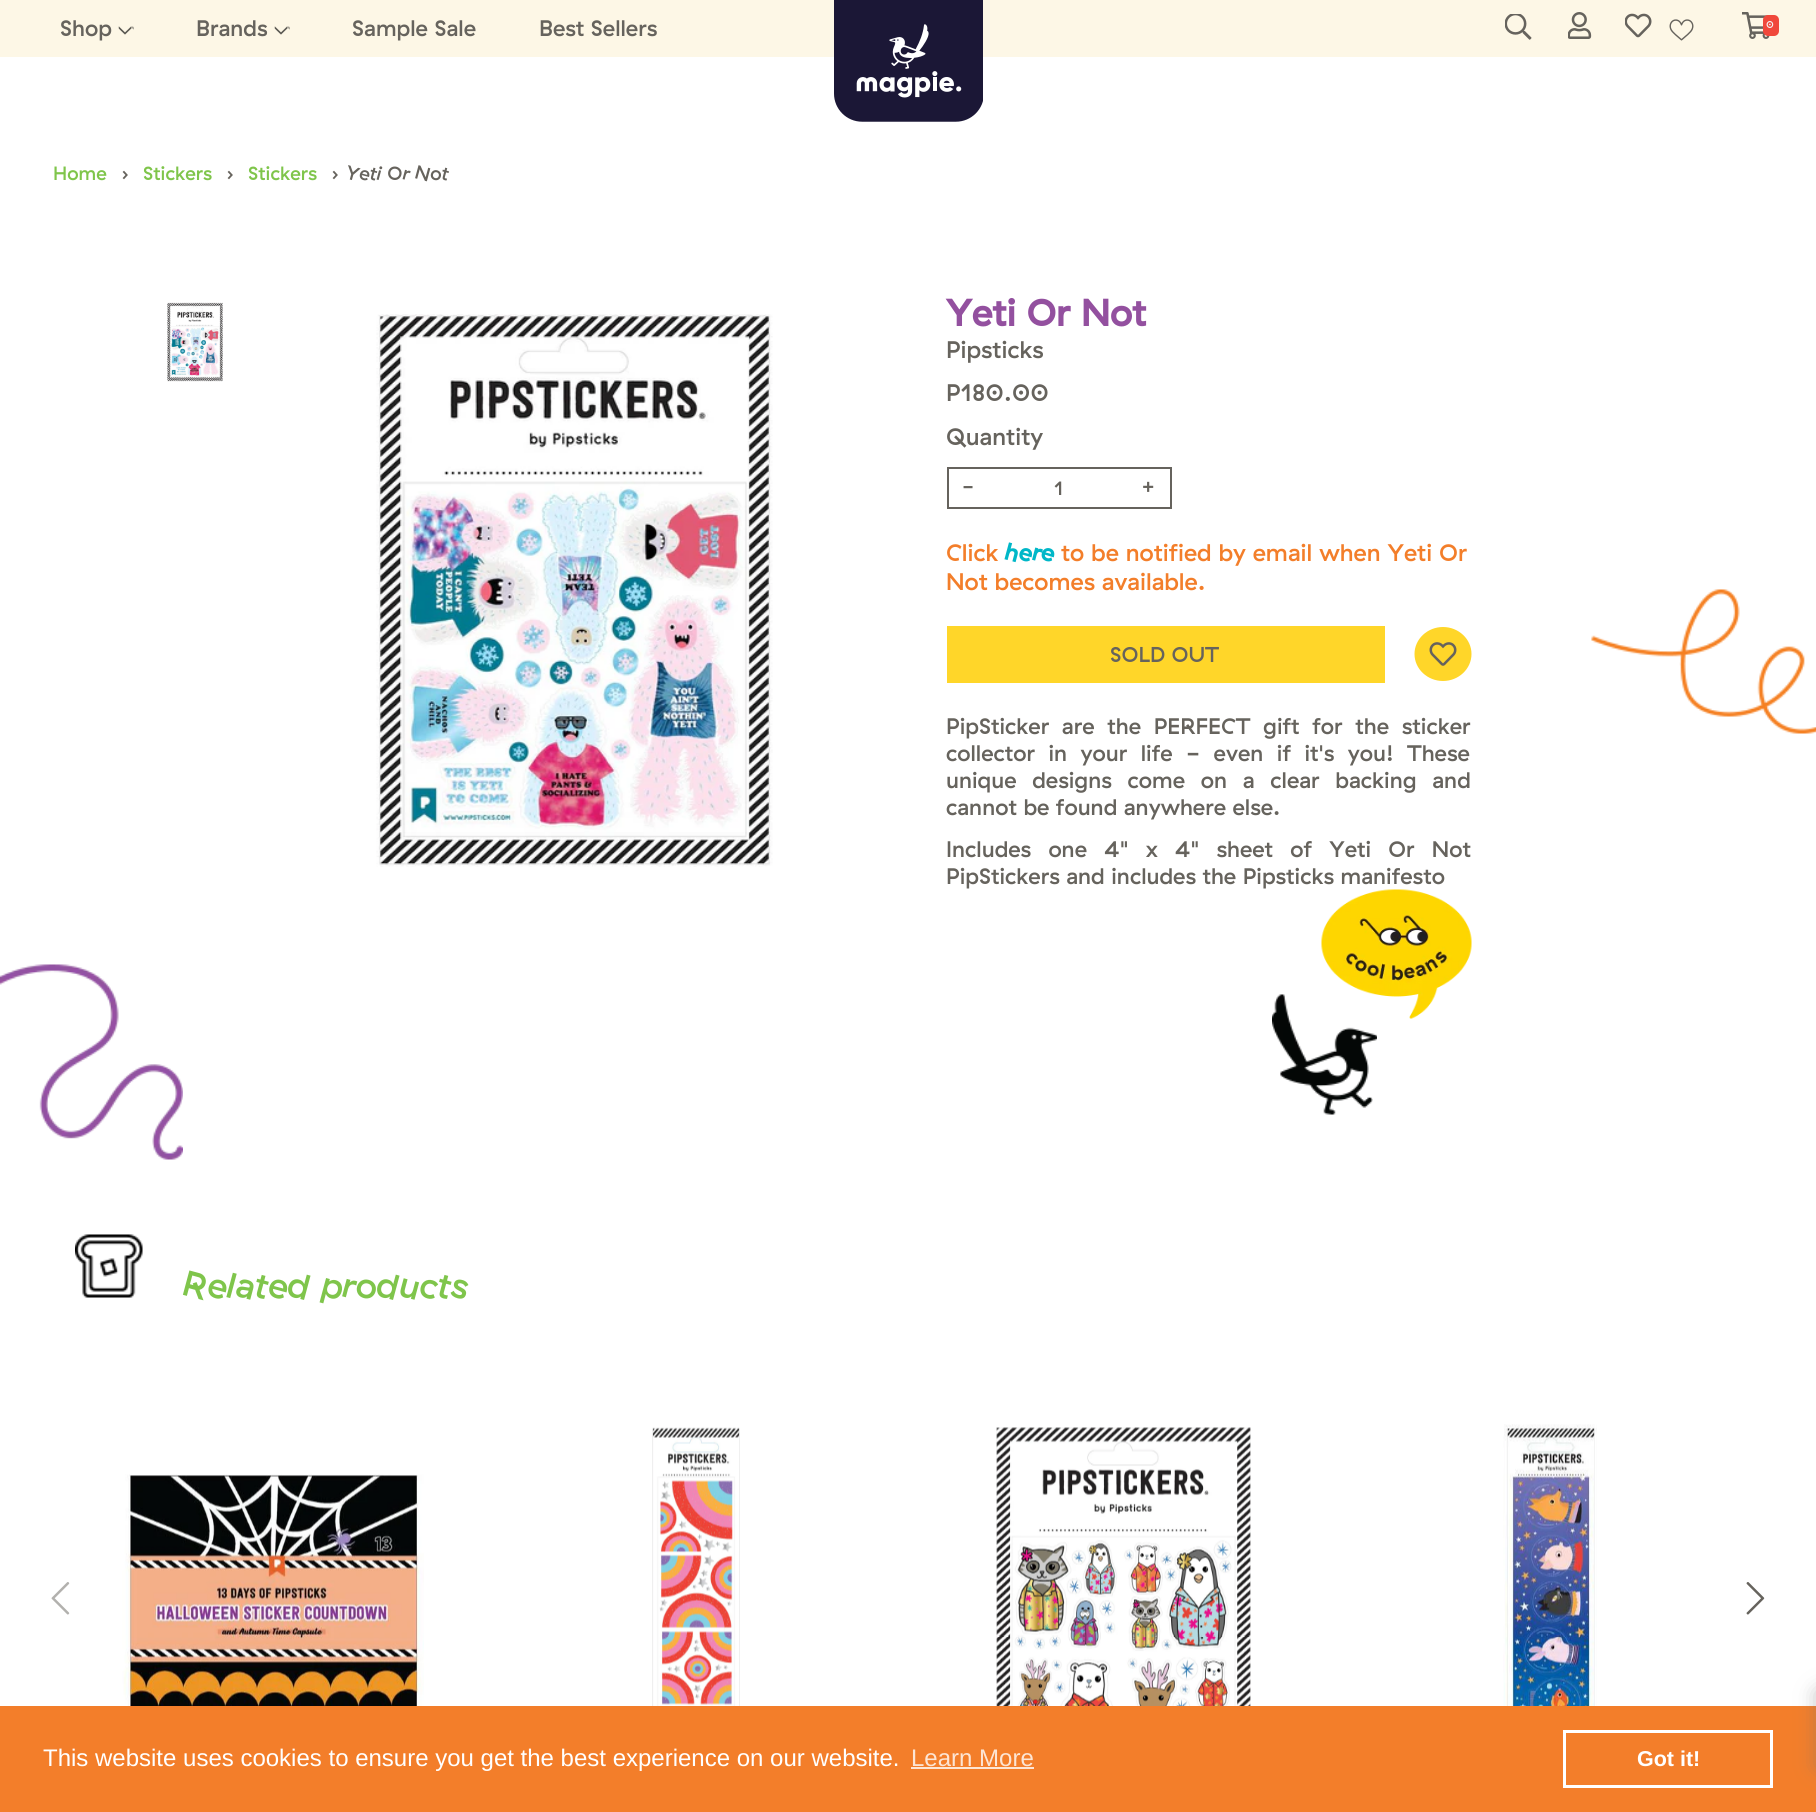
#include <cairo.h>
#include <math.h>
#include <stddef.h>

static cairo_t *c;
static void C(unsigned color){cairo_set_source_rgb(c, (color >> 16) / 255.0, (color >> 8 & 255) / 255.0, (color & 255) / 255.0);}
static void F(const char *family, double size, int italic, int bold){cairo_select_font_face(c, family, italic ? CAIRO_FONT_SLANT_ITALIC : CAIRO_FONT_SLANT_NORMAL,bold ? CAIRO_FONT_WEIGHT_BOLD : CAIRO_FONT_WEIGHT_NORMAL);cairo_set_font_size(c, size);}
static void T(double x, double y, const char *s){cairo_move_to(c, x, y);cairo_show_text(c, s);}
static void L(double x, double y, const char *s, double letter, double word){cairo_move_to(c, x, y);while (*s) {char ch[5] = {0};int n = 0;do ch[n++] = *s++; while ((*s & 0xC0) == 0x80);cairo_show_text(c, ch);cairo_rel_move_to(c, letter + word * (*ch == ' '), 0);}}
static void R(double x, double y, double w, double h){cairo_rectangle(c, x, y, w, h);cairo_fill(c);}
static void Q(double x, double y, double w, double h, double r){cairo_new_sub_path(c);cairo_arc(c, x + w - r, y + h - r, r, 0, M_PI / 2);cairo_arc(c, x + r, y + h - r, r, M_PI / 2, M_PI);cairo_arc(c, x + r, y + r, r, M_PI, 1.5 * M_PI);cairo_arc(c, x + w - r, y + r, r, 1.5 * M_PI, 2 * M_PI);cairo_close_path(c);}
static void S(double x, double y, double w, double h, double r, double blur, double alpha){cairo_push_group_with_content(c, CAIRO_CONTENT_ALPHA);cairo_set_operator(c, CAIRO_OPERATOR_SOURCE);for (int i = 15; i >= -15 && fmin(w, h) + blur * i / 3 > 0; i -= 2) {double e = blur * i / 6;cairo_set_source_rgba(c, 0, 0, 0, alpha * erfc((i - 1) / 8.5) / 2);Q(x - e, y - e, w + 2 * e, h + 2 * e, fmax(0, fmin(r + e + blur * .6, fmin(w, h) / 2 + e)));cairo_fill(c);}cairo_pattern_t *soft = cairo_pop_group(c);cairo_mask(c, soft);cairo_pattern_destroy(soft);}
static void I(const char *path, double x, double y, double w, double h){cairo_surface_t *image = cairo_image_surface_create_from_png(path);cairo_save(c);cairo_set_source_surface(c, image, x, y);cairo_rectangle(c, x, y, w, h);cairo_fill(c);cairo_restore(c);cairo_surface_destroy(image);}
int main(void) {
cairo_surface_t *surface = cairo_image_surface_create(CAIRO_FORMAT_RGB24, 1816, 1812);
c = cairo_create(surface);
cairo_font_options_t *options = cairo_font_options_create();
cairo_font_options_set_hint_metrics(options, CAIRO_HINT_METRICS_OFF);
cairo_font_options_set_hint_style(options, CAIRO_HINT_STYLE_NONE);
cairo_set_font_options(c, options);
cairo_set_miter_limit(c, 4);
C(0xffffff);
cairo_paint(c);
C(0xfdf7e6);
R(0,0,1816,57);
F("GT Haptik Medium",22.5,0,0);
C(0x66635d);
T(60,36,"Shop");
I("1.png",118,26,16,9);
T(196,36,"Brands");
I("1.png",274,26,16,9);
T(352,36,"Sample Sale");
T(539,36,"Best Sellers");
I("2.png",834,0,149,122);
I("3.png",1505,14,27,26);
I("4.png",1568,12,24,27);
I("5.png",1625,13,27,25);
I("6.png",1669,19,25,22);
I("7.png",1742,12,28,27);
C(0xf0483b);
Q(1763,15,16,21,5);
cairo_fill(c);
F("GT Haptik Medium",10,0,0);
C(0xf2f2f2);
T(1766,28,"0");
F("GT Haptik Medium",19.25,0,0);
C(0x7fc54b);
T(53,180,"Home");
C(0x66635d);
T(121,180,"›");
C(0x7fc54b);
T(143,180,"Stickers");
C(0x66635d);
T(226,180,"›");
C(0x7fc54b);
T(248,180,"Stickers");
C(0x66635d);
T(331,180,"›");
F("GT Haptik Medium",19.25,1,0);
T(346,180,"Yeti Or Not");
I("8.png",167,302,56,80);
I("9.png",376,314,397,553);
F("GT Haptik",37.5,0,1);
C(0x93509f);
T(946,326,"Yeti Or Not");
F("GT Haptik Medium",24,0,0);
C(0x66635d);
T(946,358,"Pipsticks");
T(946,401,"P180.00");
T(946,445,"Quantity");
cairo_rectangle(c,948,468,223,40);
cairo_stroke(c);
F("GT Haptik Medium",19.25,0,0);
T(962,493,"-");
T(1054,495,"1");
T(1142,493,"+");
F("GT Haptik Medium",24,0,0);
C(0xf37e2a);
T(946,561,"Click");
F("GT Haptik",24,1,1);
C(0x00b7c8);
T(1005,561,"here");
F("GT Haptik Medium",24,0,0);
C(0xf37e2a);
T(1061,561,"to be notified by email when Yeti Or");
T(946,590,"Not becomes available.");
C(0xffd629);
R(947,626,438,57);
F("GT Haptik Medium",21.5,0,0);
C(0x66635d);
T(1110,662,"SOLD OUT");
C(0xffd629);
cairo_new_path(c);
cairo_move_to(c,1443,627);
cairo_curve_to(c,1458.5,627,1471.5,639,1471.5,654);
cairo_curve_to(c,1471.5,669,1458.5,681,1443,681);
cairo_curve_to(c,1427.5,681,1414.5,669,1414.5,654);
cairo_curve_to(c,1414.5,639,1427.5,627,1443,627);
cairo_close_path(c);
cairo_fill(c);
I("10.png",1429,642,28,24);
F("GT Haptik Medium",22.5,0,0);
C(0x66635d);
L(946,734,"PipSticker are the PERFECT gift for the sticker",0,6.25);
L(946,761,"collector in your life - even if it's you! These",0,7);
L(946,788,"unique designs come on a clear backing and",0,9.25);
T(946,815,"cannot be found anywhere else.");
L(946,857,"Includes one 4\" x 4\" sheet of Yeti Or Not",0,10.75);
T(946,884,"PipStickers and includes the Pipsticks manifesto");
I("12.png",1272,994,105,121);
I("11.png",1321,889,151,130);
I("13.png",1591,589,225,145);
I("14.png",0,964,183,196);
I("15.png",75,1234,68,64);
F("GT Haptik Medium",36,1,0);
C(0x7fc54b);
T(183,1298,"Related products");
I("16.png",51,1582,19,33);
I("17.png",122,1474,302,232);
I("18.png",652,1427,88,279);
I("19.png",996,1427,255,279);
I("20.png",1503,1424,94,282);
I("21.png",1746,1582,19,33);
C(0xf37e2a);
R(0,1706,1816,106);
F("Liberation Sans",24,0,0);
C(0xffffff);
T(43,1766,"This website uses cookies to ensure you get the best experience on our website.");
C(0xfde5d4);
T(911,1766,"Learn More");
R(911,1767,123,2);
cairo_rectangle(c,1564.5,1731.5,207,55);
C(0xffffff);
cairo_set_line_width(c,3);
cairo_stroke(c);
F("Liberation Sans",21.5,0,1);
T(1637,1766,"Got it!");
C(0x757575);
S(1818,1692,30,75,0,10.5,.5);
cairo_surface_write_to_png(surface, "o.png");
cairo_font_options_destroy(options);
cairo_destroy(c);
cairo_surface_destroy(surface);
return 0;
}
